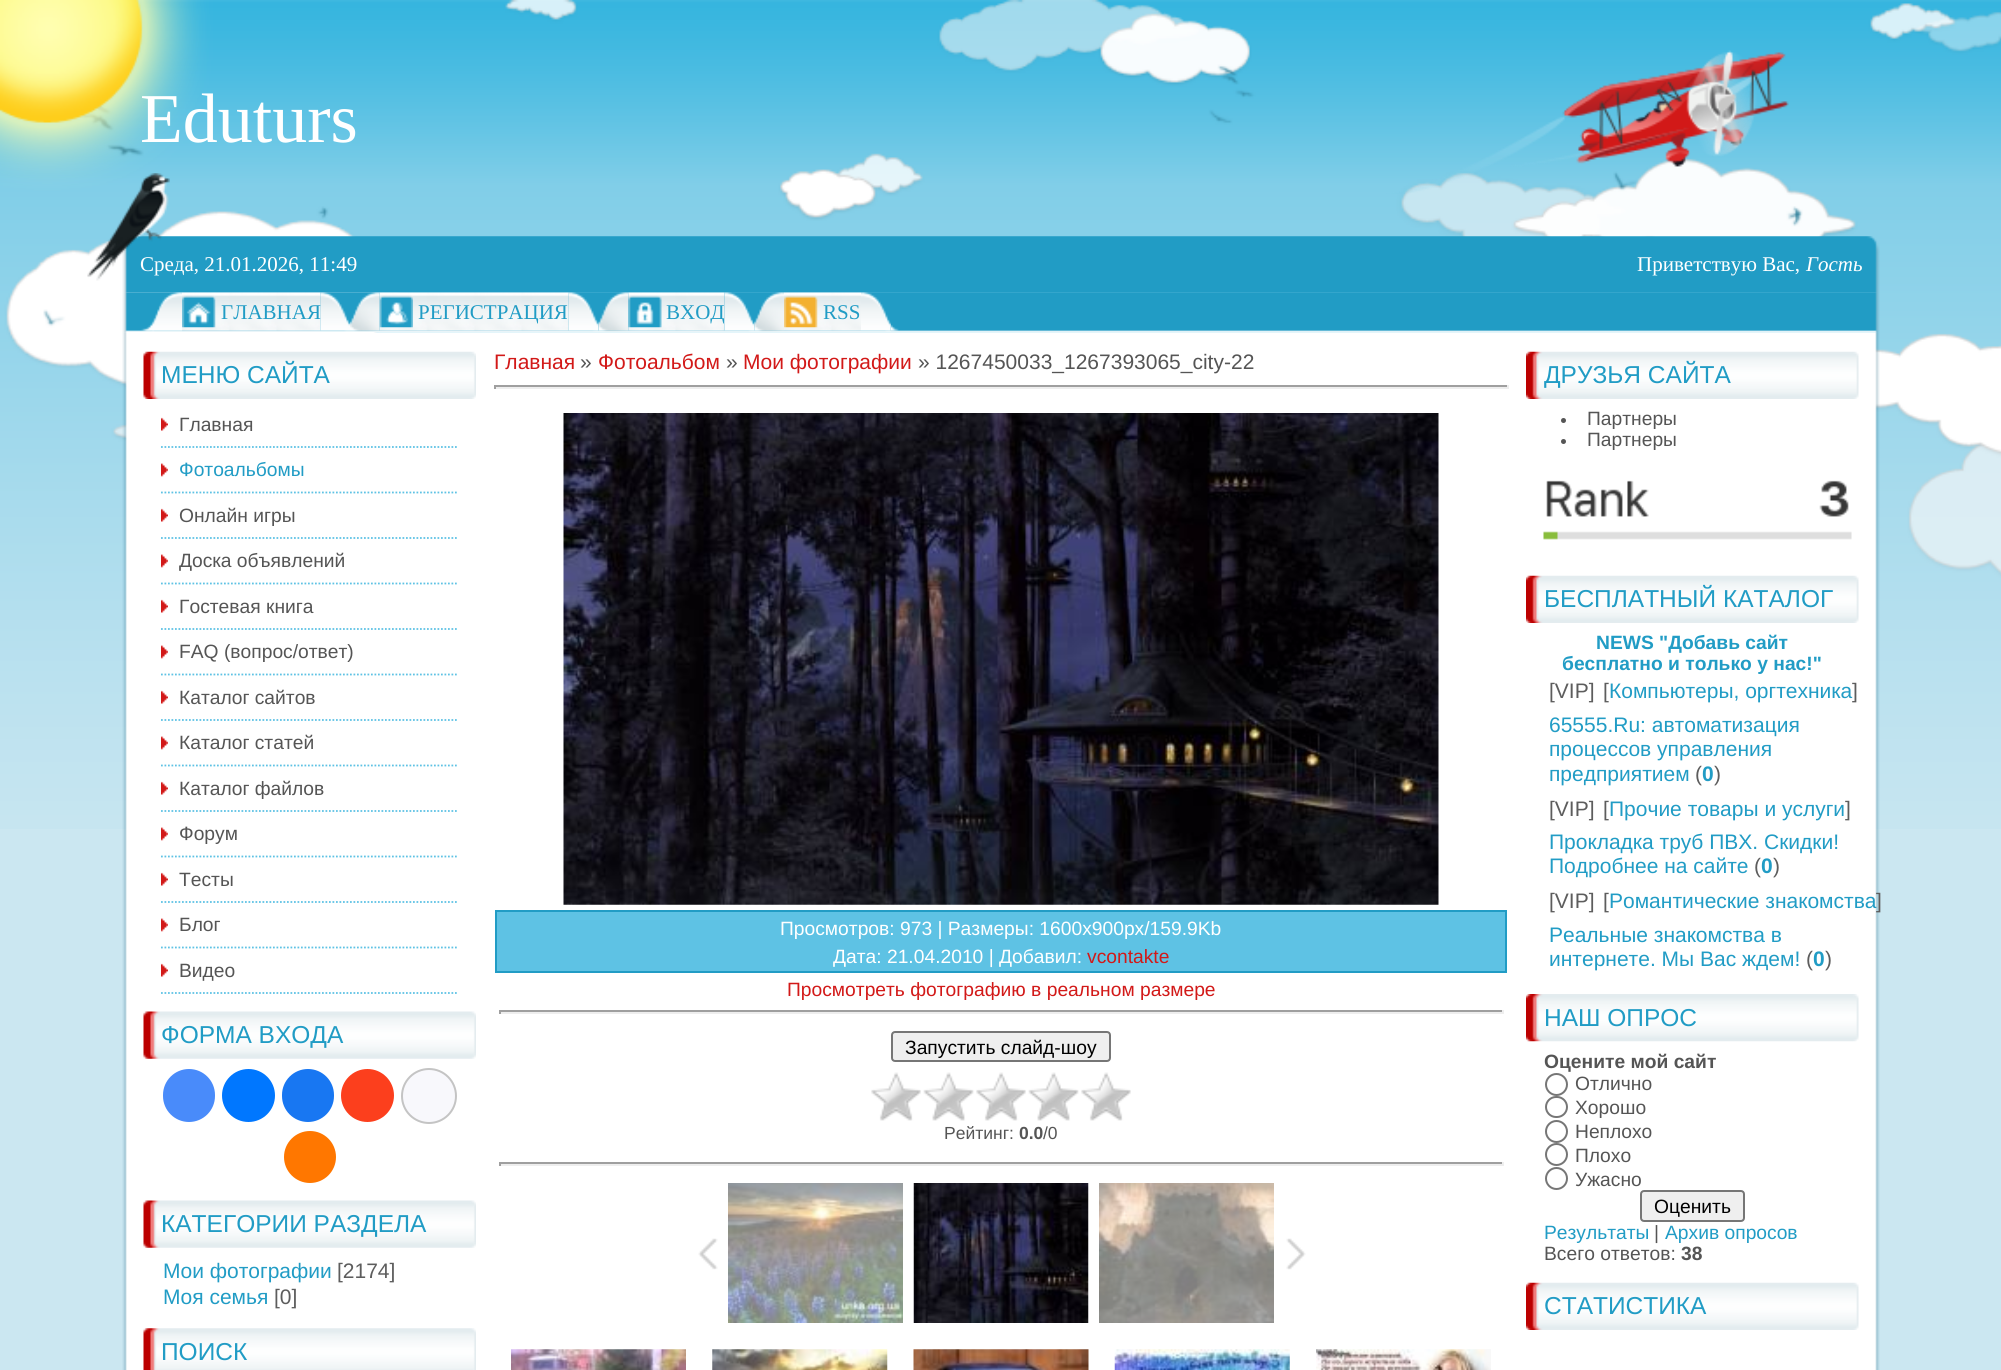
#include <cairo.h>
#include <math.h>
#include <stddef.h>

static cairo_t *c;
static void C(unsigned color){cairo_set_source_rgb(c, (color >> 16) / 255.0, (color >> 8 & 255) / 255.0, (color & 255) / 255.0);}
static void F(const char *family, double size, int italic, int bold){cairo_select_font_face(c, family, italic ? CAIRO_FONT_SLANT_ITALIC : CAIRO_FONT_SLANT_NORMAL,bold ? CAIRO_FONT_WEIGHT_BOLD : CAIRO_FONT_WEIGHT_NORMAL);cairo_set_font_size(c, size);}
static void T(double x, double y, const char *s){cairo_move_to(c, x, y);cairo_show_text(c, s);}
static void R(double x, double y, double w, double h){cairo_rectangle(c, x, y, w, h);cairo_fill(c);}
static void Q(double x, double y, double w, double h, double r){cairo_new_sub_path(c);cairo_arc(c, x + w - r, y + h - r, r, 0, M_PI / 2);cairo_arc(c, x + r, y + h - r, r, M_PI / 2, M_PI);cairo_arc(c, x + r, y + r, r, M_PI, 1.5 * M_PI);cairo_arc(c, x + w - r, y + r, r, 1.5 * M_PI, 2 * M_PI);cairo_close_path(c);}
static void I(const char *path, double x, double y, double w, double h){cairo_surface_t *image = cairo_image_surface_create_from_png(path);cairo_save(c);cairo_set_source_surface(c, image, x, y);cairo_rectangle(c, x, y, w, h);cairo_fill(c);cairo_restore(c);cairo_surface_destroy(image);}
int main(void) {
cairo_surface_t *surface = cairo_image_surface_create(CAIRO_FORMAT_RGB24, 2001, 1370);
c = cairo_create(surface);
cairo_font_options_t *options = cairo_font_options_create();
cairo_font_options_set_hint_metrics(options, CAIRO_HINT_METRICS_OFF);
cairo_font_options_set_hint_style(options, CAIRO_HINT_STYLE_NONE);
cairo_set_font_options(c, options);
cairo_set_miter_limit(c, 4);
C(0xcbe7f1);
cairo_paint(c);
I("1.png",0,0,2001,829);
I("2.png",0,0,1789,194);
F("Liberation Serif",70,0,0);
C(0xffffff);
T(140,142,"Eduturs");
I("5.png",122,292,1758,41);
I("6.png",141,292,41,40);
I("7.png",182,292,139,40);
I("9.png",320,292,30,40);
I("10.png",350,292,30,40);
I("11.png",379,292,190,40);
I("13.png",568,292,31,40);
I("14.png",598,292,31,40);
I("15.png",628,292,97,40);
F("Liberation Serif",21,0,0);
C(0x219cc5);
T(666,319,"ВХОД");
I("17.png",724,292,31,40);
I("18.png",754,292,30,40);
I("19.png",784,292,77,40);
I("21.png",861,292,30,40);
I("3.png",122,236,1758,57);
C(0xffffff);
T(140,271,"Среда, 21.01.2026, 11:49");
I("4.png",87,173,83,108);
T(1637,271,"Приветствую Вас,");
F("Liberation Serif",21,1,0);
T(1806,271,"Гость");
I("8.png",182,295,34,33);
F("Liberation Serif",21,0,0);
C(0x219cc5);
T(221,319,"ГЛАВНАЯ");
I("12.png",379,295,34,33);
T(418,319,"РЕГИСТРАЦИЯ");
I("16.png",628,295,34,33);
I("20.png",784,295,34,33);
T(823,319,"RSS");
I("22.png",890,325,9,6);
I("23.png",122,332,1758,1038);
I("24.png",143,351,333,48);
F("Liberation Sans",24.5,0,0);
T(161,383,"МЕНЮ САЙТА");
cairo_new_path(c);
cairo_move_to(c,161,447);
cairo_line_to(c,458.5,447);
C(0x5ec2e4);
cairo_set_line_width(c,1.8);
cairo_set_dash(c,(double[]){1.75,1.75},2,0);
cairo_stroke(c);
I("25.png",161,417,7,14);
F("Liberation Sans",19.25,0,0);
C(0x555555);
T(179,431,"Главная");
cairo_new_path(c);
cairo_move_to(c,161,492.5);
cairo_line_to(c,458.5,492.5);
C(0x5ec2e4);
cairo_stroke(c);
I("26.png",161,463,7,14);
C(0x219cc5);
T(179,476,"Фотоальбомы");
cairo_new_path(c);
cairo_move_to(c,161,538);
cairo_line_to(c,458.5,538);
C(0x5ec2e4);
cairo_stroke(c);
I("25.png",161,508,7,14);
C(0x555555);
T(179,522,"Онлайн игры");
cairo_new_path(c);
cairo_move_to(c,161,583.5);
cairo_line_to(c,458.5,583.5);
C(0x5ec2e4);
cairo_stroke(c);
I("26.png",161,554,7,14);
C(0x555555);
T(179,567,"Доска объявлений");
cairo_new_path(c);
cairo_move_to(c,161,629);
cairo_line_to(c,458.5,629);
C(0x5ec2e4);
cairo_stroke(c);
I("25.png",161,599,7,14);
C(0x555555);
T(179,613,"Гостевая книга");
cairo_new_path(c);
cairo_move_to(c,161,674.5);
cairo_line_to(c,458.5,674.5);
C(0x5ec2e4);
cairo_stroke(c);
I("26.png",161,645,7,14);
C(0x555555);
T(179,658,"FAQ (вопрос/ответ)");
cairo_new_path(c);
cairo_move_to(c,161,720);
cairo_line_to(c,458.5,720);
C(0x5ec2e4);
cairo_stroke(c);
I("25.png",161,690,7,14);
C(0x555555);
T(179,704,"Каталог сайтов");
cairo_new_path(c);
cairo_move_to(c,161,765.5);
cairo_line_to(c,458.5,765.5);
C(0x5ec2e4);
cairo_stroke(c);
I("26.png",161,736,7,14);
C(0x555555);
T(179,749,"Каталог статей");
cairo_new_path(c);
cairo_move_to(c,161,811);
cairo_line_to(c,458.5,811);
C(0x5ec2e4);
cairo_stroke(c);
I("25.png",161,781,7,14);
C(0x555555);
T(179,795,"Каталог файлов");
cairo_new_path(c);
cairo_move_to(c,161,856.5);
cairo_line_to(c,458.5,856.5);
C(0x5ec2e4);
cairo_stroke(c);
I("26.png",161,827,7,14);
C(0x555555);
T(179,840,"Форум");
cairo_new_path(c);
cairo_move_to(c,161,902);
cairo_line_to(c,458.5,902);
C(0x5ec2e4);
cairo_stroke(c);
I("25.png",161,872,7,14);
C(0x555555);
T(179,886,"Тесты");
cairo_new_path(c);
cairo_move_to(c,161,947.5);
cairo_line_to(c,458.5,947.5);
C(0x5ec2e4);
cairo_stroke(c);
I("26.png",161,918,7,14);
C(0x555555);
T(179,931,"Блог");
cairo_new_path(c);
cairo_move_to(c,161,993);
cairo_line_to(c,458.5,993);
C(0x5ec2e4);
cairo_stroke(c);
I("25.png",161,963,7,14);
C(0x555555);
T(179,977,"Видео");
I("27.png",143,1011,333,48);
F("Liberation Sans",24.5,0,0);
C(0x219cc5);
T(161,1043,"ФОРМА ВХОДА");
C(0x498bfa);
Q(163,1069,52,53,26);
cairo_fill(c);
C(0x0077ff);
cairo_arc(c,248.5,1095.5,26.5,0,2 * M_PI);
cairo_fill(c);
C(0x1877f2);
Q(282,1069,52,53,26);
cairo_fill(c);
C(0xfc3f1d);
cairo_arc(c,367.5,1095.5,26.5,0,2 * M_PI);
cairo_fill(c);
C(0xf8f8fc);
cairo_arc(c,429,1096,27,0,2 * M_PI);
cairo_fill_preserve(c);
C(0xc4c4c4);
cairo_set_line_width(c,2);
cairo_set_dash(c,NULL,0,0);
cairo_stroke(c);
C(0xff7700);
cairo_arc(c,310,1157,26,0,2 * M_PI);
cairo_fill(c);
I("27.png",143,1200,333,48);
C(0x219cc5);
T(161,1232,"КАТЕГОРИИ РАЗДЕЛА");
F("Liberation Sans",21,0,0);
T(163,1278,"Мои фотографии");
C(0x5d5d5d);
T(337,1278,"[2174]");
C(0x219cc5);
T(163,1304,"Моя семья");
C(0x5d5d5d);
T(274,1304,"[0]");
I("28.png",143,1328,333,42);
F("Liberation Sans",24.5,0,0);
C(0x219cc5);
T(161,1360,"ПОИСК");
F("Liberation Sans",21,0,0);
C(0xd21918);
T(494,369,"Главная");
C(0x555555);
T(580,369,"»");
C(0xd21918);
T(598,369,"Фотоальбом");
C(0x555555);
T(726,369,"»");
C(0xd21918);
T(743,369,"Мои фотографии");
C(0x555555);
T(918,369,"» 1267450033_1267393065_city-22");
C(0x9f9f9f);
R(494,385,1015,2);
C(0xeeeeee);
R(1507,385,2,4);
R(494,387,1015,2);
C(0x9f9f9f);
R(494,385,2,4);
I("29.png",563,413,876,492);
C(0x5ec2e4);
cairo_rectangle(c,496,911,1010,61);
cairo_fill_preserve(c);
C(0x219cc5);
cairo_stroke(c);
F("Liberation Sans",19.25,0,0);
C(0xffffff);
T(780,935,"Просмотров: 973 | Размеры: 1600x900px/159.9Kb");
T(833,963,"Дата: 21.04.2010 | Добавил:");
C(0xd21918);
T(1087,963,"vcontakte");
T(787,996,"Просмотреть фотографию в реальном размере");
C(0x9f9f9f);
R(499,1010,1004,2);
C(0xeeeeee);
R(1502,1010,2,4);
R(499,1012,1004,2);
C(0x9f9f9f);
R(499,1010,2,4);
C(0xefefef);
Q(892,1032,218,29,3);
cairo_fill_preserve(c);
C(0x767676);
cairo_stroke(c);
C(0x000000);
T(905,1054,"Запустить слайд-шоу");
I("30.png",871,1072,260,49);
F("Liberation Sans",17.5,0,0);
C(0x555555);
T(944,1139,"Рейтинг:");
F("Liberation Sans",17.5,0,1);
T(1019,1139,"0.0");
F("Liberation Sans",17.5,0,0);
T(1043,1139,"/0");
C(0x9f9f9f);
R(499,1162,1004,2);
C(0xeeeeee);
R(1502,1162,2,4);
R(499,1164,1004,2);
C(0x9f9f9f);
R(499,1162,2,4);
I("31.png",698,1238,20,32);
I("32.png",728,1183,175,140);
I("33.png",913,1183,176,140);
I("34.png",1099,1183,175,140);
I("35.png",1286,1238,20,32);
I("36.png",511,1349,175,21);
I("37.png",712,1349,176,21);
I("38.png",913,1349,176,21);
I("39.png",1114,1349,176,21);
I("40.png",1316,1349,175,21);
I("41.png",1526,351,333,48);
F("Liberation Sans",24.5,0,0);
C(0x219cc5);
T(1544,383,"ДРУЗЬЯ САЙТА");
C(0x555555);
cairo_new_path(c);
cairo_arc(c,1563.5,420.5,2.5,0,2 * M_PI);
cairo_fill(c);
F("Liberation Sans",19.25,0,0);
T(1587,425,"Партнеры");
cairo_new_path(c);
cairo_arc(c,1563.5,441.5,2.5,0,2 * M_PI);
cairo_fill(c);
T(1587,446,"Партнеры");
I("42.png",1543,480,309,60);
I("41.png",1526,575,333,48);
F("Liberation Sans",24.5,0,0);
C(0x219cc5);
T(1544,607,"БЕСПЛАТНЫЙ КАТАЛОГ");
F("Liberation Sans",19.25,0,1);
T(1596,649,"NEWS \"Добавь сайт");
T(1562,670,"бесплатно и только у нас!\"");
F("Liberation Sans",21,0,0);
C(0x5d5d5d);
T(1549,698,"[VIP]");
T(1603,698,"[");
C(0x219cc5);
T(1609,698,"Компьютеры, оргтехника");
C(0x5d5d5d);
T(1852,698,"]");
C(0x219cc5);
T(1549,732,"65555.Ru: автоматизация");
T(1549,756,"процессов управления");
T(1549,781,"предприятием");
C(0x5d5d5d);
T(1695,781,"(");
F("Liberation Sans",21,0,1);
C(0x219cc5);
T(1702,781,"0");
F("Liberation Sans",21,0,0);
C(0x5d5d5d);
T(1714,781,")");
T(1549,816,"[VIP]");
T(1603,816,"[");
C(0x219cc5);
T(1609,816,"Прочие товары и услуги");
C(0x5d5d5d);
T(1845,816,"]");
C(0x219cc5);
T(1549,849,"Прокладка труб ПВХ. Скидки!");
T(1549,873,"Подробнее на сайте");
C(0x5d5d5d);
T(1754,873,"(");
F("Liberation Sans",21,0,1);
C(0x219cc5);
T(1761,873,"0");
F("Liberation Sans",21,0,0);
C(0x5d5d5d);
T(1773,873,")");
T(1549,908,"[VIP]");
T(1603,908,"[");
C(0x219cc5);
T(1609,908,"Романтические знакомства");
C(0x5d5d5d);
T(1876,908,"]");
C(0x219cc5);
T(1549,942,"Реальные знакомства в");
T(1549,966,"интернете. Мы Вас ждем!");
C(0x5d5d5d);
T(1806,966,"(");
F("Liberation Sans",21,0,1);
C(0x219cc5);
T(1813,966,"0");
F("Liberation Sans",21,0,0);
C(0x5d5d5d);
T(1825,966,")");
I("43.png",1526,994,333,48);
F("Liberation Sans",24.5,0,0);
C(0x219cc5);
T(1544,1026,"НАШ ОПРОС");
F("Liberation Sans",19.25,0,1);
C(0x555555);
T(1544,1068,"Оцените мой сайт");
cairo_new_path(c);
cairo_arc(c,1556.5,1084.5,10.5,0,2 * M_PI);
C(0x767676);
cairo_stroke(c);
F("Liberation Sans",19.25,0,0);
C(0x555555);
T(1575,1090,"Отлично");
Q(1546,1097,21,20,10);
C(0x767676);
cairo_stroke(c);
C(0x555555);
T(1575,1114,"Хорошо");
cairo_new_path(c);
cairo_arc(c,1556.5,1131.5,10.5,0,2 * M_PI);
C(0x767676);
cairo_stroke(c);
C(0x555555);
T(1575,1138,"Неплохо");
cairo_new_path(c);
cairo_arc(c,1556.5,1154.5,10.5,0,2 * M_PI);
C(0x767676);
cairo_stroke(c);
C(0x555555);
T(1575,1162,"Плохо");
cairo_new_path(c);
cairo_arc(c,1556.5,1178.5,10.5,0,2 * M_PI);
C(0x767676);
cairo_stroke(c);
C(0x555555);
T(1575,1186,"Ужасно");
C(0xefefef);
Q(1641,1191,103,30,3);
cairo_fill_preserve(c);
C(0x767676);
cairo_stroke(c);
C(0x000000);
T(1654,1213,"Оценить");
C(0x219cc5);
T(1544,1239,"Результаты");
C(0x555555);
T(1654,1239,"|");
C(0x219cc5);
T(1665,1239,"Архив опросов");
C(0x555555);
T(1544,1260,"Всего ответов:");
F("Liberation Sans",19.25,0,1);
T(1681,1260,"38");
I("41.png",1526,1282,333,48);
F("Liberation Sans",24.5,0,0);
C(0x219cc5);
T(1544,1314,"СТАТИСТИКА");
cairo_surface_write_to_png(surface, "o.png");
cairo_font_options_destroy(options);
cairo_destroy(c);
cairo_surface_destroy(surface);
return 0;
}
